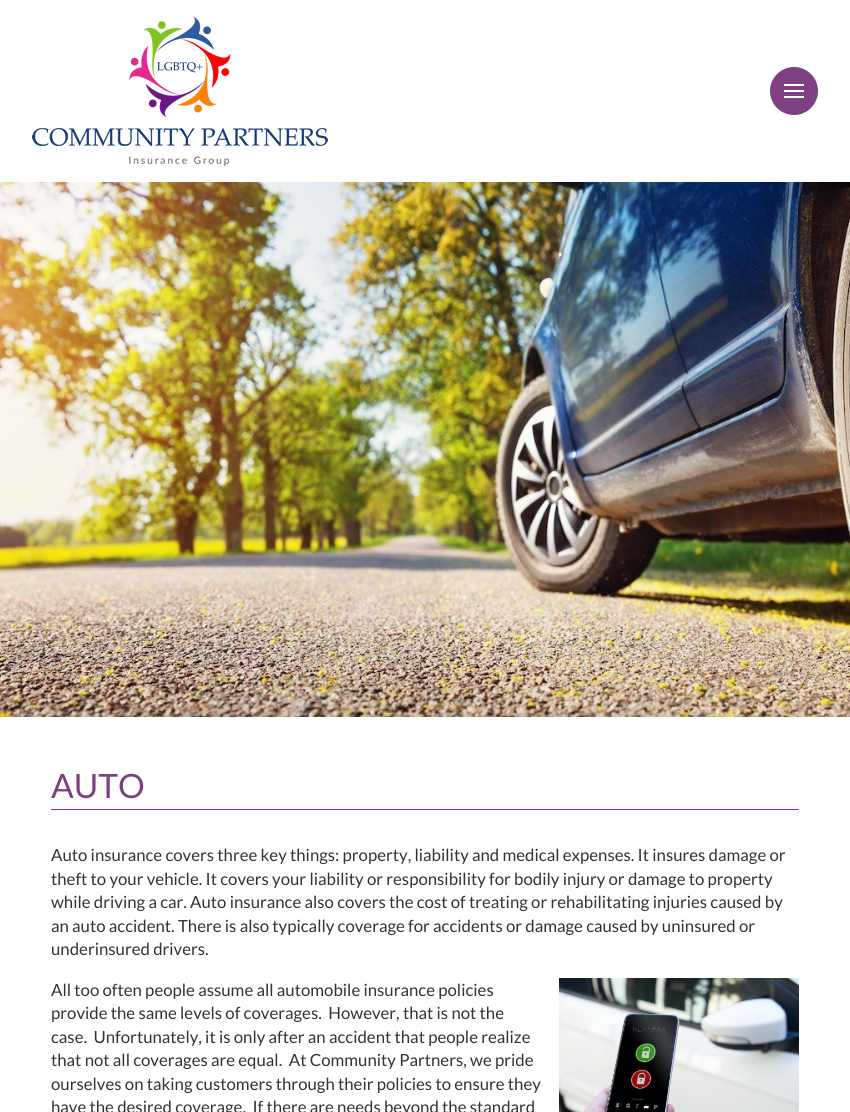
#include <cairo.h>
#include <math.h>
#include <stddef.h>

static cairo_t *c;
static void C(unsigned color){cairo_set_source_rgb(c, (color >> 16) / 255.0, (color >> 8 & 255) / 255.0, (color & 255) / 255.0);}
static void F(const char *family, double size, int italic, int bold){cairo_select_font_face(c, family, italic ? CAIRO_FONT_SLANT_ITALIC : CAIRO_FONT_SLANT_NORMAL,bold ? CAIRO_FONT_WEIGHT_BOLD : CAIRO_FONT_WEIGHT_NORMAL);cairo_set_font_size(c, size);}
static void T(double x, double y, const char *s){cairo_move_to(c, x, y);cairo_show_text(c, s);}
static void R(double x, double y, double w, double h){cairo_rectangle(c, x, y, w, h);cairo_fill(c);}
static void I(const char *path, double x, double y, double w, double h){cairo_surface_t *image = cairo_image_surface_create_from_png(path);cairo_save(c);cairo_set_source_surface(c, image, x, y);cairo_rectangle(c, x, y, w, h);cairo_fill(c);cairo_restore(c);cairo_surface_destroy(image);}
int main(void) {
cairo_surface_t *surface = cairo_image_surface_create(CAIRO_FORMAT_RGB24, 850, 1112);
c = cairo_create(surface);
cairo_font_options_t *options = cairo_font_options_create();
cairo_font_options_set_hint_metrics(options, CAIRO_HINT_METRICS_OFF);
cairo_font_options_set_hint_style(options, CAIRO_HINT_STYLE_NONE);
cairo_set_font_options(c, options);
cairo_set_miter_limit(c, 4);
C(0xffffff);
cairo_paint(c);
I("1.png",32,16,296,150);
C(0x7e4082);
cairo_arc(c,794,91,24,0,2 * M_PI);
cairo_fill(c);
C(0xffffff);
R(784,84,20,2);
R(784,90,20,2);
R(784,96,20,2);
I("2.png",0,182,850,535);
C(0x7e4082);
R(51,809,748,1);
F("Lato",33.5,0,0);
T(51,798,"AUTO");
F("Lato",16.8,0,0);
C(0x333333);
T(51,861,"Auto insurance covers three key things: property, liability and medical expenses. It insures damage or");
T(51,885,"theft to your vehicle. It covers your liability or responsibility for bodily injury or damage to property");
T(51,908,"while driving a car. Auto insurance also covers the cost of treating or rehabilitating injuries caused by");
T(51,932,"an auto accident. There is also typically coverage for accidents or damage caused by uninsured or");
T(51,955,"underinsured drivers.");
T(51,996,"All too often people assume all automobile insurance policies");
T(51,1019,"provide the same levels of coverages.  However, that is not the");
T(51,1043,"case.  Unfortunately, it is only after an accident that people realize");
T(51,1066,"that not all coverages are equal.  At Community Partners, we pride");
T(51,1090,"ourselves on taking customers through their policies to ensure they");
T(51,1113,"have the desired coverage.  If there are needs beyond the standard");
I("3.png",559,978,240,134);
cairo_surface_write_to_png(surface, "o.png");
cairo_font_options_destroy(options);
cairo_destroy(c);
cairo_surface_destroy(surface);
return 0;
}
